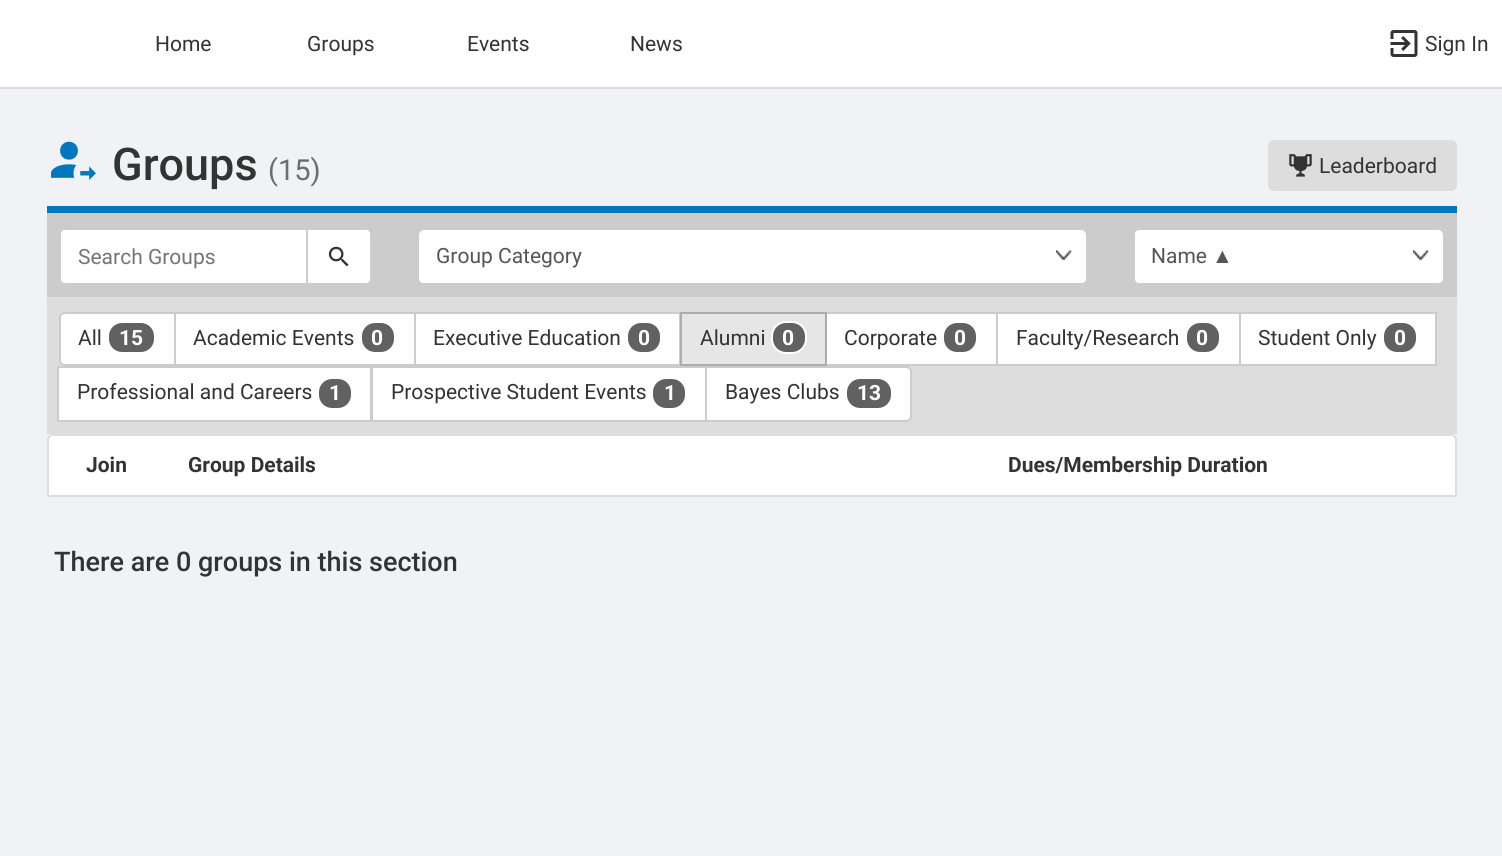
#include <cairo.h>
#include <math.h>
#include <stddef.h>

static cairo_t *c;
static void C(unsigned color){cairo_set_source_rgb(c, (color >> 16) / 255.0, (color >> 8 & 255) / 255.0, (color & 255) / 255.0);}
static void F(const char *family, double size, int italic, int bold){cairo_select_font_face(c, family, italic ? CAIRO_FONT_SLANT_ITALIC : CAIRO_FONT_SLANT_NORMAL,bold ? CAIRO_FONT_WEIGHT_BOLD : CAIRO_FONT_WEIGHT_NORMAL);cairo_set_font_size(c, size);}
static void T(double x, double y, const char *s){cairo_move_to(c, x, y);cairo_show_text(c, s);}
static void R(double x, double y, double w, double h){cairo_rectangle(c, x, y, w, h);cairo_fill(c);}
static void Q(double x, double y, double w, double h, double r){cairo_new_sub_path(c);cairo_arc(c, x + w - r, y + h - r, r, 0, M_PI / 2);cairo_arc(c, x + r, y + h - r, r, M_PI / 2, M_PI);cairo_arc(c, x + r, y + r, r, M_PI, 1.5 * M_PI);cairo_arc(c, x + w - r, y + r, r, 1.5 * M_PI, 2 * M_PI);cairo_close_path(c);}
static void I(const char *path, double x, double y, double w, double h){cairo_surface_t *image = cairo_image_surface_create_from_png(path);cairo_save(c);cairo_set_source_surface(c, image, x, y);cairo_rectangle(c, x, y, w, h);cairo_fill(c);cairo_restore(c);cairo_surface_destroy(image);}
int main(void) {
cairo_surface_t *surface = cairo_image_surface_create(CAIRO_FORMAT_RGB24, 1502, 856);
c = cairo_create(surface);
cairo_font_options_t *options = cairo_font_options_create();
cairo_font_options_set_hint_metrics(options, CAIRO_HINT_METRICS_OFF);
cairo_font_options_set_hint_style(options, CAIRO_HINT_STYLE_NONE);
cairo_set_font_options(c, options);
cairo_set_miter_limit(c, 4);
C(0xf0f2f5);
cairo_paint(c);
C(0xffffff);
R(0,0,1502,87);
C(0xd8dadd);
R(0,87,1502,2);
F("Roboto",21,0,0);
C(0x333333);
T(155,51,"Home");
T(307,51,"Groups");
T(467,51,"Events");
T(630,51,"News");
I("1.png",1390,30,28,27);
T(1425,51,"Sign In");
I("2.png",51,141,45,39);
F("Roboto Medium",45,0,0);
T(112,180,"Groups");
F("Roboto",29,0,0);
C(0x6d6d6d);
T(268,180,"(15)");
C(0xdddddd);
Q(1269,141,187,49,5);
cairo_fill_preserve(c);
cairo_stroke(c);
I("3.png",1289,154,23,23);
F("Roboto",21,0,0);
C(0x333333);
T(1319,173,"Leaderboard");
C(0xcccccc);
R(47,213,1410,84);
C(0x0277bd);
R(47,206,1410,7);
C(0xffffff);
cairo_new_path(c);
cairo_move_to(c,65,229);
cairo_line_to(c,307,229);
cairo_line_to(c,307,284);
cairo_line_to(c,65,284);
cairo_curve_to(c,62,284,60,282,60,279);
cairo_line_to(c,60,234);
cairo_curve_to(c,60,231,62,229,65,229);
cairo_close_path(c);
cairo_fill_preserve(c);
C(0xcccccc);
cairo_stroke(c);
C(0x757575);
T(78,264,"Search Groups");
C(0xffffff);
cairo_new_path(c);
cairo_move_to(c,307,229);
cairo_line_to(c,366,229);
cairo_curve_to(c,369,229,371,231,371,234);
cairo_line_to(c,371,279);
cairo_curve_to(c,371,282,369,284,366,284);
cairo_line_to(c,307,284);
cairo_close_path(c);
cairo_fill_preserve(c);
C(0xcccccc);
cairo_stroke(c);
I("4.png",328,246,21,21);
C(0xffffff);
Q(419,230,667,54,5);
cairo_fill(c);
I("5.png",1056,250,16,11);
Q(418,229,669,55,5);
C(0xcccccc);
cairo_stroke(c);
C(0x555555);
T(436,263,"Group Category");
C(0xffffff);
Q(1134,230,309,54,5);
cairo_fill(c);
I("6.png",1413,250,16,11);
Q(1134,229,310,55,5);
C(0xcccccc);
cairo_stroke(c);
C(0x555555);
T(1151,263,"Name");
F("Liberation Sans",21,0,0);
T(1212,263,"▲");
C(0xdddddd);
R(47,297,1410,137);
C(0xffffff);
cairo_new_path(c);
cairo_move_to(c,65,313);
cairo_line_to(c,175,313);
cairo_line_to(c,175,365);
cairo_line_to(c,65,365);
cairo_curve_to(c,62,365,60,363,60,360);
cairo_line_to(c,60,318);
cairo_curve_to(c,60,315,62,313,65,313);
cairo_close_path(c);
cairo_fill_preserve(c);
C(0xcccccc);
cairo_stroke(c);
F("Roboto",21,0,0);
C(0x333333);
T(78,345,"All");
C(0x616161);
Q(108,322,47,31,14);
cairo_fill_preserve(c);
C(0xffffff);
cairo_stroke(c);
F("Roboto",21,0,1);
T(119,345,"15");
cairo_rectangle(c,175,313,240,52);
cairo_fill_preserve(c);
C(0xcccccc);
cairo_stroke(c);
F("Roboto",21,0,0);
C(0x333333);
T(193,345,"Academic Events");
C(0x616161);
Q(361,322,34,31,14);
cairo_fill_preserve(c);
C(0xffffff);
cairo_stroke(c);
F("Roboto",21,0,1);
T(371,345,"0");
cairo_rectangle(c,415,313,265,52);
cairo_fill_preserve(c);
C(0xcccccc);
cairo_stroke(c);
F("Roboto",21,0,0);
C(0x333333);
T(433,345,"Executive Education");
C(0x616161);
Q(627,322,34,31,14);
cairo_fill_preserve(c);
C(0xffffff);
cairo_stroke(c);
F("Roboto",21,0,1);
T(638,345,"0");
cairo_rectangle(c,826,313,171,52);
cairo_fill_preserve(c);
C(0xcccccc);
cairo_stroke(c);
C(0xe6e6e6);
cairo_rectangle(c,681,313,145,52);
cairo_fill_preserve(c);
C(0xadadad);
cairo_stroke(c);
F("Roboto",21,0,0);
C(0x333333);
T(700,345,"Alumni");
C(0x616161);
Q(772,322,34,31,14);
cairo_fill_preserve(c);
C(0xffffff);
cairo_stroke(c);
F("Roboto",21,0,1);
T(782,345,"0");
F("Roboto",21,0,0);
C(0x333333);
T(844,345,"Corporate");
C(0x616161);
Q(943,322,34,31,14);
cairo_fill_preserve(c);
C(0xffffff);
cairo_stroke(c);
F("Roboto",21,0,1);
T(954,345,"0");
cairo_rectangle(c,997,313,243,52);
cairo_fill_preserve(c);
C(0xcccccc);
cairo_stroke(c);
F("Roboto",21,0,0);
C(0x333333);
T(1016,345,"Faculty/Research");
C(0x616161);
Q(1186,322,34,31,14);
cairo_fill_preserve(c);
C(0xffffff);
cairo_stroke(c);
F("Roboto",21,0,1);
T(1196,345,"0");
cairo_rectangle(c,1240,313,196,52);
cairo_fill_preserve(c);
C(0xcccccc);
cairo_stroke(c);
F("Roboto",21,0,0);
C(0x333333);
T(1258,345,"Student Only");
C(0x616161);
Q(1383,322,34,31,14);
cairo_fill_preserve(c);
C(0xffffff);
cairo_stroke(c);
F("Roboto",21,0,1);
T(1394,345,"0");
cairo_rectangle(c,58,367,313,54);
cairo_fill_preserve(c);
C(0xcccccc);
cairo_stroke(c);
F("Roboto",21,0,0);
C(0x333333);
T(77,399,"Professional and Careers");
C(0x616161);
Q(318,378,34,31,14);
cairo_fill_preserve(c);
C(0xffffff);
cairo_stroke(c);
F("Roboto",21,0,1);
T(329,400,"1");
cairo_rectangle(c,372,367,334,54);
cairo_fill_preserve(c);
C(0xcccccc);
cairo_stroke(c);
F("Roboto",21,0,0);
C(0x333333);
T(391,399,"Prospective Student Events");
C(0x616161);
Q(652,378,34,31,14);
cairo_fill_preserve(c);
C(0xffffff);
cairo_stroke(c);
F("Roboto",21,0,1);
T(664,400,"1");
cairo_new_path(c);
cairo_move_to(c,706,367);
cairo_line_to(c,906,367);
cairo_curve_to(c,909,367,911,369,911,372);
cairo_line_to(c,911,416);
cairo_curve_to(c,911,419,909,421,906,421);
cairo_line_to(c,706,421);
cairo_close_path(c);
cairo_fill_preserve(c);
C(0xcccccc);
cairo_stroke(c);
F("Roboto",21,0,0);
C(0x333333);
T(725,399,"Bayes Clubs");
C(0x616161);
Q(846,378,46,31,14);
cairo_fill_preserve(c);
C(0xffffff);
cairo_stroke(c);
F("Roboto",21,0,1);
T(857,400,"13");
cairo_new_path(c);
cairo_move_to(c,53,435);
cairo_line_to(c,1451,435);
cairo_curve_to(c,1454,435,1456,437,1456,440);
cairo_line_to(c,1456,496);
cairo_line_to(c,48,496);
cairo_line_to(c,48,440);
cairo_curve_to(c,48,437,50,435,53,435);
cairo_close_path(c);
cairo_fill_preserve(c);
C(0xdddddd);
cairo_stroke(c);
C(0x333333);
T(86,472,"Join");
T(188,472,"Group Details");
T(1008,472,"Dues/Membership Duration");
F("Roboto Medium",27,0,0);
T(54,571,"There are 0 groups in this section");
cairo_surface_write_to_png(surface, "o.png");
cairo_font_options_destroy(options);
cairo_destroy(c);
cairo_surface_destroy(surface);
return 0;
}
